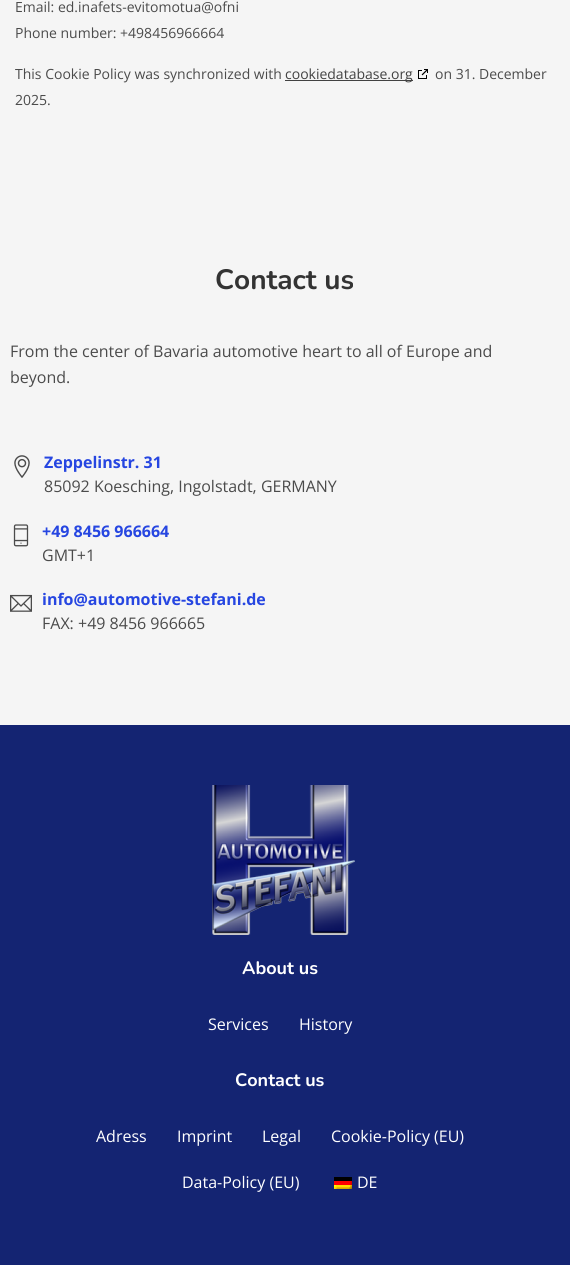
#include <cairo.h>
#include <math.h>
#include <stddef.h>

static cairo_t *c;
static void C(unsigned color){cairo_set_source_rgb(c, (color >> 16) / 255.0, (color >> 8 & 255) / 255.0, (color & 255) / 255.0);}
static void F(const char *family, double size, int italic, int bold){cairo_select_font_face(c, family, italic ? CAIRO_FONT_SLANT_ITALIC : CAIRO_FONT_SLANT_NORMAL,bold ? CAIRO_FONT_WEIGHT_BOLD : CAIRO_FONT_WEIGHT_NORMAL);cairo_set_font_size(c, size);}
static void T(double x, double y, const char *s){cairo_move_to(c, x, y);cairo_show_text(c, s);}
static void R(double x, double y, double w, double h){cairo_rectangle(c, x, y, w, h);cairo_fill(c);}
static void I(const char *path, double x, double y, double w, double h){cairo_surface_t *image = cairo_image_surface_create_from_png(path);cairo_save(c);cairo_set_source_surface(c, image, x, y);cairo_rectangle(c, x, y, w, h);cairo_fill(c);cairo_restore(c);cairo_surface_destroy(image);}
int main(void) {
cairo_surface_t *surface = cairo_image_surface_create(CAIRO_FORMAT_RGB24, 570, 1265);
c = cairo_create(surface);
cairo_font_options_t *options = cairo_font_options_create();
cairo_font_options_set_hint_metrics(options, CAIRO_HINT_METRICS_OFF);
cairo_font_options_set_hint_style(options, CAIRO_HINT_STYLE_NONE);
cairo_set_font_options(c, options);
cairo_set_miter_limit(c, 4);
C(0xf5f5f5);
cairo_paint(c);
F("Open Sans",14,0,0);
C(0x4b4b4b);
T(15,12,"Email: ed.inafets-evitomotua@ofni");
T(15,38,"Phone number: +498456966664");
T(15,79,"This Cookie Policy was synchronized with");
C(0x424242);
R(285,80,128,1);
T(285,79,"cookiedatabase.org");
I("1.png",418,69,10,10);
C(0x4b4b4b);
T(435,79,"on 31. December");
T(15,105,"2025.");
F("Nunito",28,0,1);
C(0x333333);
T(215,289,"Contact us");
F("Open Sans",16,0,0);
C(0x4b4b4b);
T(10,357,"From the center of Bavaria automotive heart to all of Europe and");
T(10,383,"beyond.");
I("2.png",14,455,16,23);
F("Open Sans",16,0,1);
C(0x2646e1);
T(44,468,"Zeppelinstr. 31");
F("Open Sans",16,0,0);
C(0x4b4b4b);
T(44,492,"85092 Koesching, Ingolstadt, GERMANY");
I("3.png",13,524,16,23);
F("Open Sans",16,0,1);
C(0x2646e1);
T(42,537,"+49 8456 966664");
F("Open Sans",16,0,0);
C(0x4b4b4b);
T(42,561,"GMT+1");
I("4.png",10,594,22,18);
F("Open Sans",16,0,1);
C(0x2646e1);
T(42,605,"info@automotive-stefani.de");
F("Open Sans",16,0,0);
C(0x4b4b4b);
T(42,629,"FAX: +49 8456 966665");
C(0x142472);
R(0,725,570,540);
I("5.png",212,785,143,150);
F("Nunito",18,0,1);
C(0xffffff);
T(242,974,"About us");
F("Open Sans",16,0,0);
T(208,1030,"Services");
T(299,1030,"History");
F("Nunito",18,0,1);
T(235,1086,"Contact us");
F("Open Sans",16,0,0);
T(96,1142,"Adress");
T(177,1142,"Imprint");
T(262,1142,"Legal");
T(331,1142,"Cookie-Policy (EU)");
T(182,1188,"Data-Policy (EU)");
I("6.png",334,1177,18,12);
T(357,1188,"DE");
cairo_surface_write_to_png(surface, "o.png");
cairo_font_options_destroy(options);
cairo_destroy(c);
cairo_surface_destroy(surface);
return 0;
}
